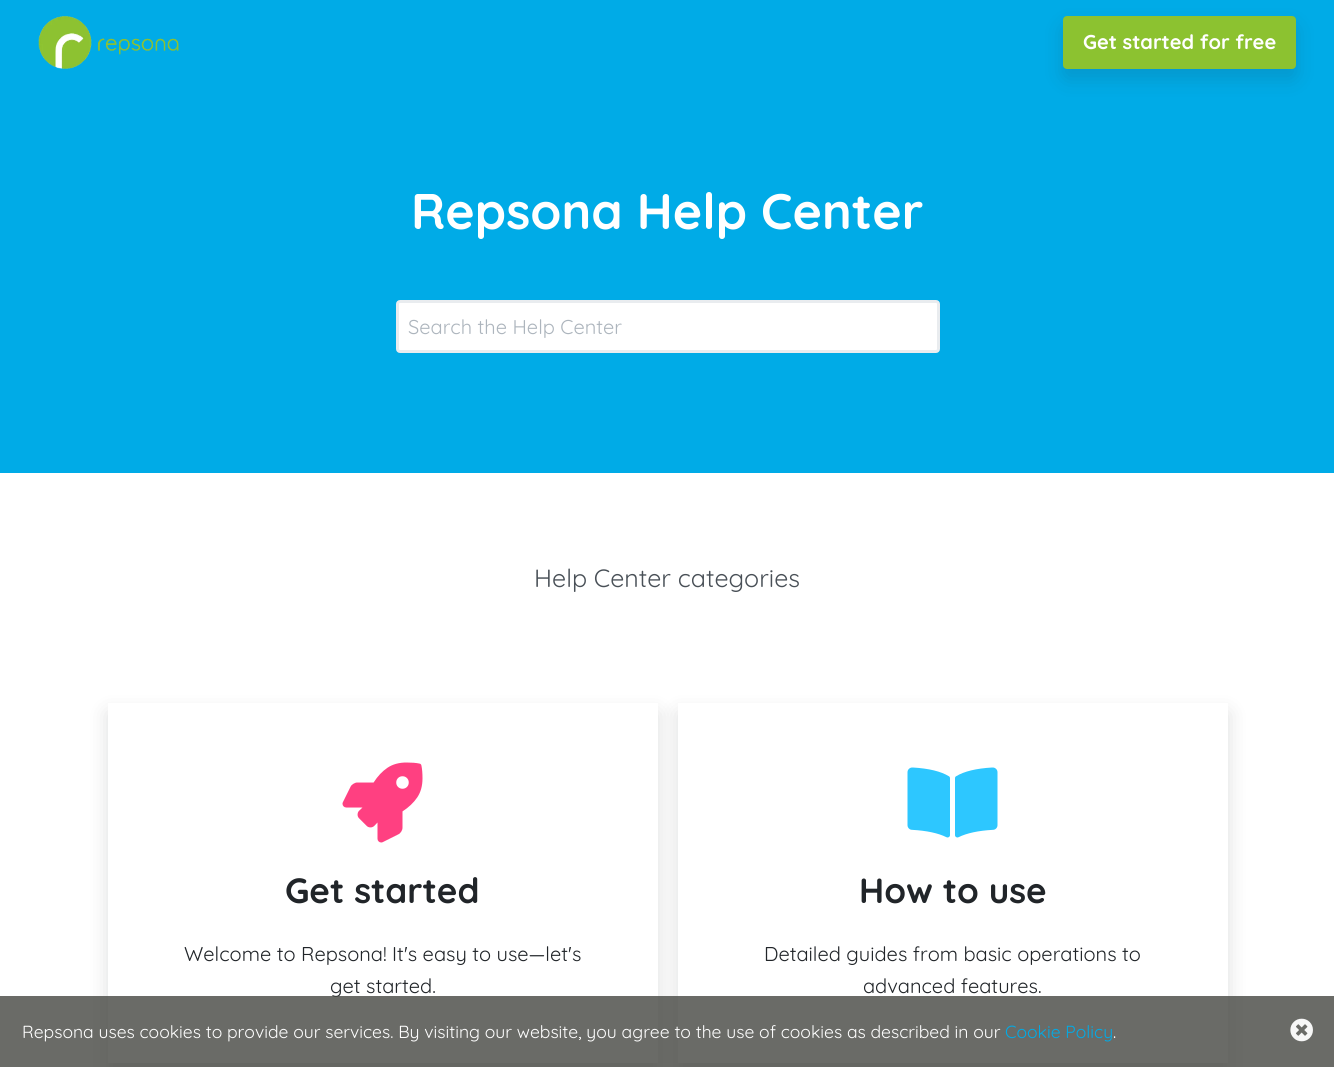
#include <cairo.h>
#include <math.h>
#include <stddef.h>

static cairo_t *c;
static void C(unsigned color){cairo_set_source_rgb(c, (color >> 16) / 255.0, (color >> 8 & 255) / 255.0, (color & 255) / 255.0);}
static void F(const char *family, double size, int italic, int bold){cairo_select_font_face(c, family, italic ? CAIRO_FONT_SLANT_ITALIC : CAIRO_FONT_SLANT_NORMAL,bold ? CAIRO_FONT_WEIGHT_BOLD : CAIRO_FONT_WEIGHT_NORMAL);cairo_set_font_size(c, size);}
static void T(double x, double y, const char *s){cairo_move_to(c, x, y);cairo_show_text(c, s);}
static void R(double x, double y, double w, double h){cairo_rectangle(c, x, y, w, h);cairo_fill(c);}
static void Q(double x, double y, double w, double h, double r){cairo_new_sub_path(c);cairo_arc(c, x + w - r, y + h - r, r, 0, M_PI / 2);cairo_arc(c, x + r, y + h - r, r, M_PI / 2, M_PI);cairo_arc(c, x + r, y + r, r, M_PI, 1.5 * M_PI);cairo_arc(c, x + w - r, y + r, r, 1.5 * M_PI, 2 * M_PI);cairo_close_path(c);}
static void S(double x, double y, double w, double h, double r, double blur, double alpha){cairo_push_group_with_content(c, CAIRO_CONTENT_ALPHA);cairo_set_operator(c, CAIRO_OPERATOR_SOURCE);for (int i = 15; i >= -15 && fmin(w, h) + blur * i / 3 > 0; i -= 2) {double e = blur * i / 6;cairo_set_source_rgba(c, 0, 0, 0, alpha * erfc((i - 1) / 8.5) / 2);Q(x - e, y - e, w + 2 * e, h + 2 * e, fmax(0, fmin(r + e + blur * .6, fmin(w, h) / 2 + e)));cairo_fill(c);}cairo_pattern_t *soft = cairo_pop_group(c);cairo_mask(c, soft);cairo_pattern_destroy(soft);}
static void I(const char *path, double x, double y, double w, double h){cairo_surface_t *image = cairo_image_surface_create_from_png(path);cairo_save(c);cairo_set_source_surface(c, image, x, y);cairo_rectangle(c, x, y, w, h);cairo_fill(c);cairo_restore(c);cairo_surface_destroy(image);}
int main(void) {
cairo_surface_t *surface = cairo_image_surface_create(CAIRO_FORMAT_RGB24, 1334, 1067);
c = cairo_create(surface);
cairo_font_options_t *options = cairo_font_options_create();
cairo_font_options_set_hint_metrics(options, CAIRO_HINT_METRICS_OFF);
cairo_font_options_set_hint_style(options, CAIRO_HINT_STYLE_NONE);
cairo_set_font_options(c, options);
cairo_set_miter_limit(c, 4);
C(0xffffff);
cairo_paint(c);
C(0x00abe7);
R(0,0,1334,473);
I("1.png",38,16,141,53);
C(0x212529);
S(1063,26,233,53,4,10,.15);
C(0x8cc230);
Q(1064.5,17.5,230,50,2.5);
cairo_fill_preserve(c);
cairo_set_line_width(c,3);
cairo_stroke(c);
F("Quicksand",20,0,1);
C(0xffffff);
T(1083,49,"Get started for free");
F("Quicksand",50,0,1);
T(411,229,"Repsona Help Center");
Q(397.5,301.5,541,50,2.5);
cairo_fill_preserve(c);
C(0xe9ecef);
cairo_stroke(c);
F("Quicksand",20,0,0);
C(0xadb5bd);
T(408,334,"Search the Help Center");
F("Quicksand",25,0,0);
C(0x495057);
T(534,587,"Help Center categories");
cairo_save(c);
cairo_set_fill_rule(c,CAIRO_FILL_RULE_EVEN_ODD);
cairo_new_path(c);
cairo_move_to(c,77,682);
cairo_line_to(c,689,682);
cairo_line_to(c,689,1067);
cairo_line_to(c,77,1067);
cairo_close_path(c);
cairo_move_to(c,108,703);
cairo_line_to(c,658,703);
cairo_line_to(c,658,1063);
cairo_line_to(c,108,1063);
cairo_close_path(c);
cairo_clip(c);
C(0x212529);
S(108,713,550,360,0,10,.15);
cairo_restore(c);
I("2.png",342,762,81,81);
F("Quicksand",35,0,1);
C(0x212529);
T(285,903,"Get started");
F("Quicksand",20,0,0);
T(184,961,"Welcome to Repsona! It's easy to use—let's");
T(330,993,"get started.");
cairo_save(c);
cairo_set_fill_rule(c,CAIRO_FILL_RULE_EVEN_ODD);
cairo_new_path(c);
cairo_move_to(c,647,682);
cairo_line_to(c,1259,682);
cairo_line_to(c,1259,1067);
cairo_line_to(c,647,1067);
cairo_close_path(c);
cairo_move_to(c,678,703);
cairo_line_to(c,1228,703);
cairo_line_to(c,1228,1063);
cairo_line_to(c,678,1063);
cairo_close_path(c);
cairo_clip(c);
C(0x212529);
S(678,713,550,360,0,10,.15);
cairo_restore(c);
I("3.png",907,767,91,71);
F("Quicksand",35,0,1);
T(859,903,"How to use");
F("Quicksand",20,0,0);
T(764,961,"Detailed guides from basic operations to");
T(863,993,"advanced features.");
cairo_set_source_rgba(c,0.271,0.275,0.255,0.8);
R(0,996,1334,71);
F("Quicksand",17.5,0,0);
C(0xffffff);
T(22,1038,"Repsona uses cookies to provide our services. By visiting our website, you agree to the use of cookies as described in our");
C(0x00abe7);
T(1005,1038,"Cookie Policy");
C(0xffffff);
T(1113,1038,".");
I("4.png",1290,1018,23,24);
cairo_surface_write_to_png(surface, "o.png");
cairo_font_options_destroy(options);
cairo_destroy(c);
cairo_surface_destroy(surface);
return 0;
}
